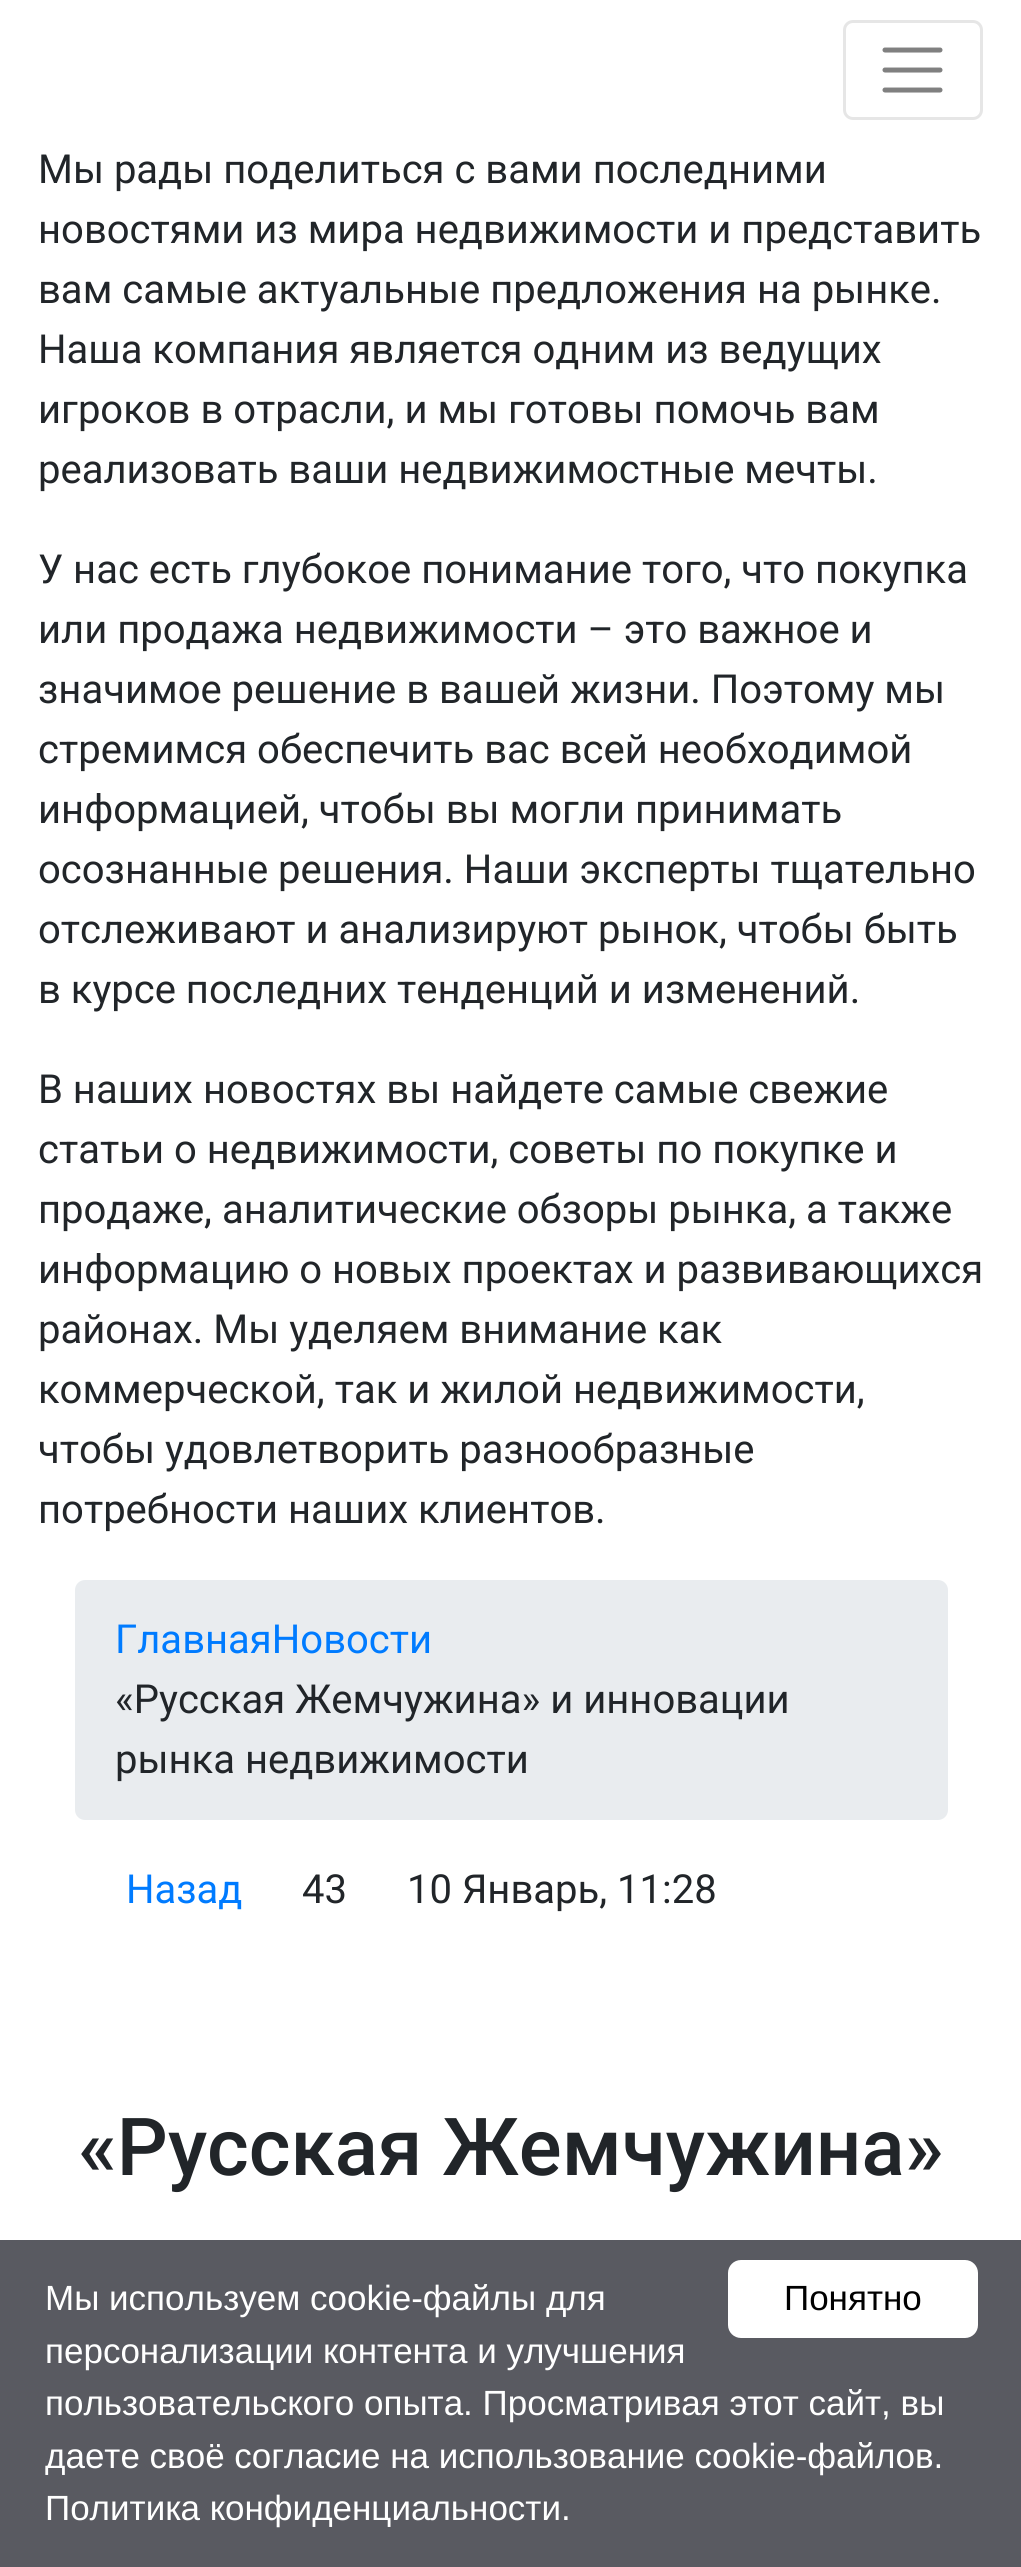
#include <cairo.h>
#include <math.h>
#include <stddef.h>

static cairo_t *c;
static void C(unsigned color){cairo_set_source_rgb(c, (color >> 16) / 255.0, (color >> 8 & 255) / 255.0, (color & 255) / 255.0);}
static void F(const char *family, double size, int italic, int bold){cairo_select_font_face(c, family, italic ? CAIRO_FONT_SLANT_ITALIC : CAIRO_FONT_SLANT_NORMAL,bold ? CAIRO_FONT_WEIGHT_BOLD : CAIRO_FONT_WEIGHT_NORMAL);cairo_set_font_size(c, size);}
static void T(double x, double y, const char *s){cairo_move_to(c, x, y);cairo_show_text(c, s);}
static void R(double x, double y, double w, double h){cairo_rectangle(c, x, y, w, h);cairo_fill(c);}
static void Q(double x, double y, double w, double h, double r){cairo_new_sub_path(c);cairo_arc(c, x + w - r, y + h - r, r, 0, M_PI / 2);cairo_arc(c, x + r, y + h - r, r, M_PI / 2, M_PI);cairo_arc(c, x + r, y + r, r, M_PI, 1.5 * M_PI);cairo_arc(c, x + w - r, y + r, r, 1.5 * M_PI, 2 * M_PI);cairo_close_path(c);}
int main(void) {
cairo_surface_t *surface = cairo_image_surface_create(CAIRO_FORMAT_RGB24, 1021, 2567);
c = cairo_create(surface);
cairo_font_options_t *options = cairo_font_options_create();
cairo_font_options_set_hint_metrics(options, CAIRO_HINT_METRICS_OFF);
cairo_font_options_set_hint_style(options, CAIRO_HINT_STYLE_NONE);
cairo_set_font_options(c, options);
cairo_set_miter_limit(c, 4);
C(0xffffff);
cairo_paint(c);
Q(844.5,21.5,137,97,8.5);
C(0xe6e6e6);
cairo_set_line_width(c,3);
cairo_stroke(c);
cairo_new_path(c);
cairo_move_to(c,885,50);
cairo_line_to(c,940,50);
cairo_move_to(c,885,70);
cairo_line_to(c,940,70);
cairo_move_to(c,885,90);
cairo_line_to(c,940,90);
C(0x808080);
cairo_set_line_width(c,5);
cairo_set_line_cap(c,CAIRO_LINE_CAP_ROUND);
cairo_stroke(c);
F("Roboto",40,0,0);
C(0x212529);
T(38,183,"Мы рады поделиться с вами последними");
T(38,243,"новостями из мира недвижимости и представить");
T(38,303,"вам самые актуальные предложения на рынке.");
T(38,363,"Наша компания является одним из ведущих");
T(38,423,"игроков в отрасли, и мы готовы помочь вам");
T(38,483,"реализовать ваши недвижимостные мечты.");
T(38,583,"У нас есть глубокое понимание того, что покупка");
T(38,643,"или продажа недвижимости – это важное и");
T(38,703,"значимое решение в вашей жизни. Поэтому мы");
T(38,763,"стремимся обеспечить вас всей необходимой");
T(38,823,"информацией, чтобы вы могли принимать");
T(38,883,"осознанные решения. Наши эксперты тщательно");
T(38,943,"отслеживают и анализируют рынок, чтобы быть");
T(38,1003,"в курсе последних тенденций и изменений.");
T(38,1103,"В наших новостях вы найдете самые свежие");
T(38,1163,"статьи о недвижимости, советы по покупке и");
T(38,1223,"продаже, аналитические обзоры рынка, а также");
T(38,1283,"информацию о новых проектах и развивающихся");
T(38,1343,"районах. Мы уделяем внимание как");
T(38,1403,"коммерческой, так и жилой недвижимости,");
T(38,1463,"чтобы удовлетворить разнообразные");
T(38,1523,"потребности наших клиентов.");
C(0xe9ecef);
Q(75,1580,873,240,10);
cairo_fill(c);
C(0x007bff);
T(115,1653,"ГлавнаяНовости");
C(0x212529);
T(115,1713,"«Русская Жемчужина» и инновации");
T(115,1773,"рынка недвижимости");
C(0x007bff);
T(126,1903,"Назад");
C(0x212529);
T(302,1903,"43");
T(407,1903,"10 Январь, 11:28");
F("Roboto Medium",80,0,0);
T(78,2175,"«Русская Жемчужина»");
C(0x595a61);
R(0,2240,1021,327);
F("Liberation Sans",35,0,0);
C(0xffffff);
T(45,2310,"Мы используем cookie-файлы для");
T(45,2363,"персонализации контента и улучшения");
T(45,2415,"пользовательского опыта. Просматривая этот сайт, вы");
T(45,2468,"даете своё согласие на использование cookie-файлов.");
T(45,2520,"Политика конфиденциальности.");
Q(728,2260,250,78,13);
cairo_fill(c);
C(0x000000);
T(784,2310,"Понятно");
cairo_surface_write_to_png(surface, "o.png");
cairo_font_options_destroy(options);
cairo_destroy(c);
cairo_surface_destroy(surface);
return 0;
}
